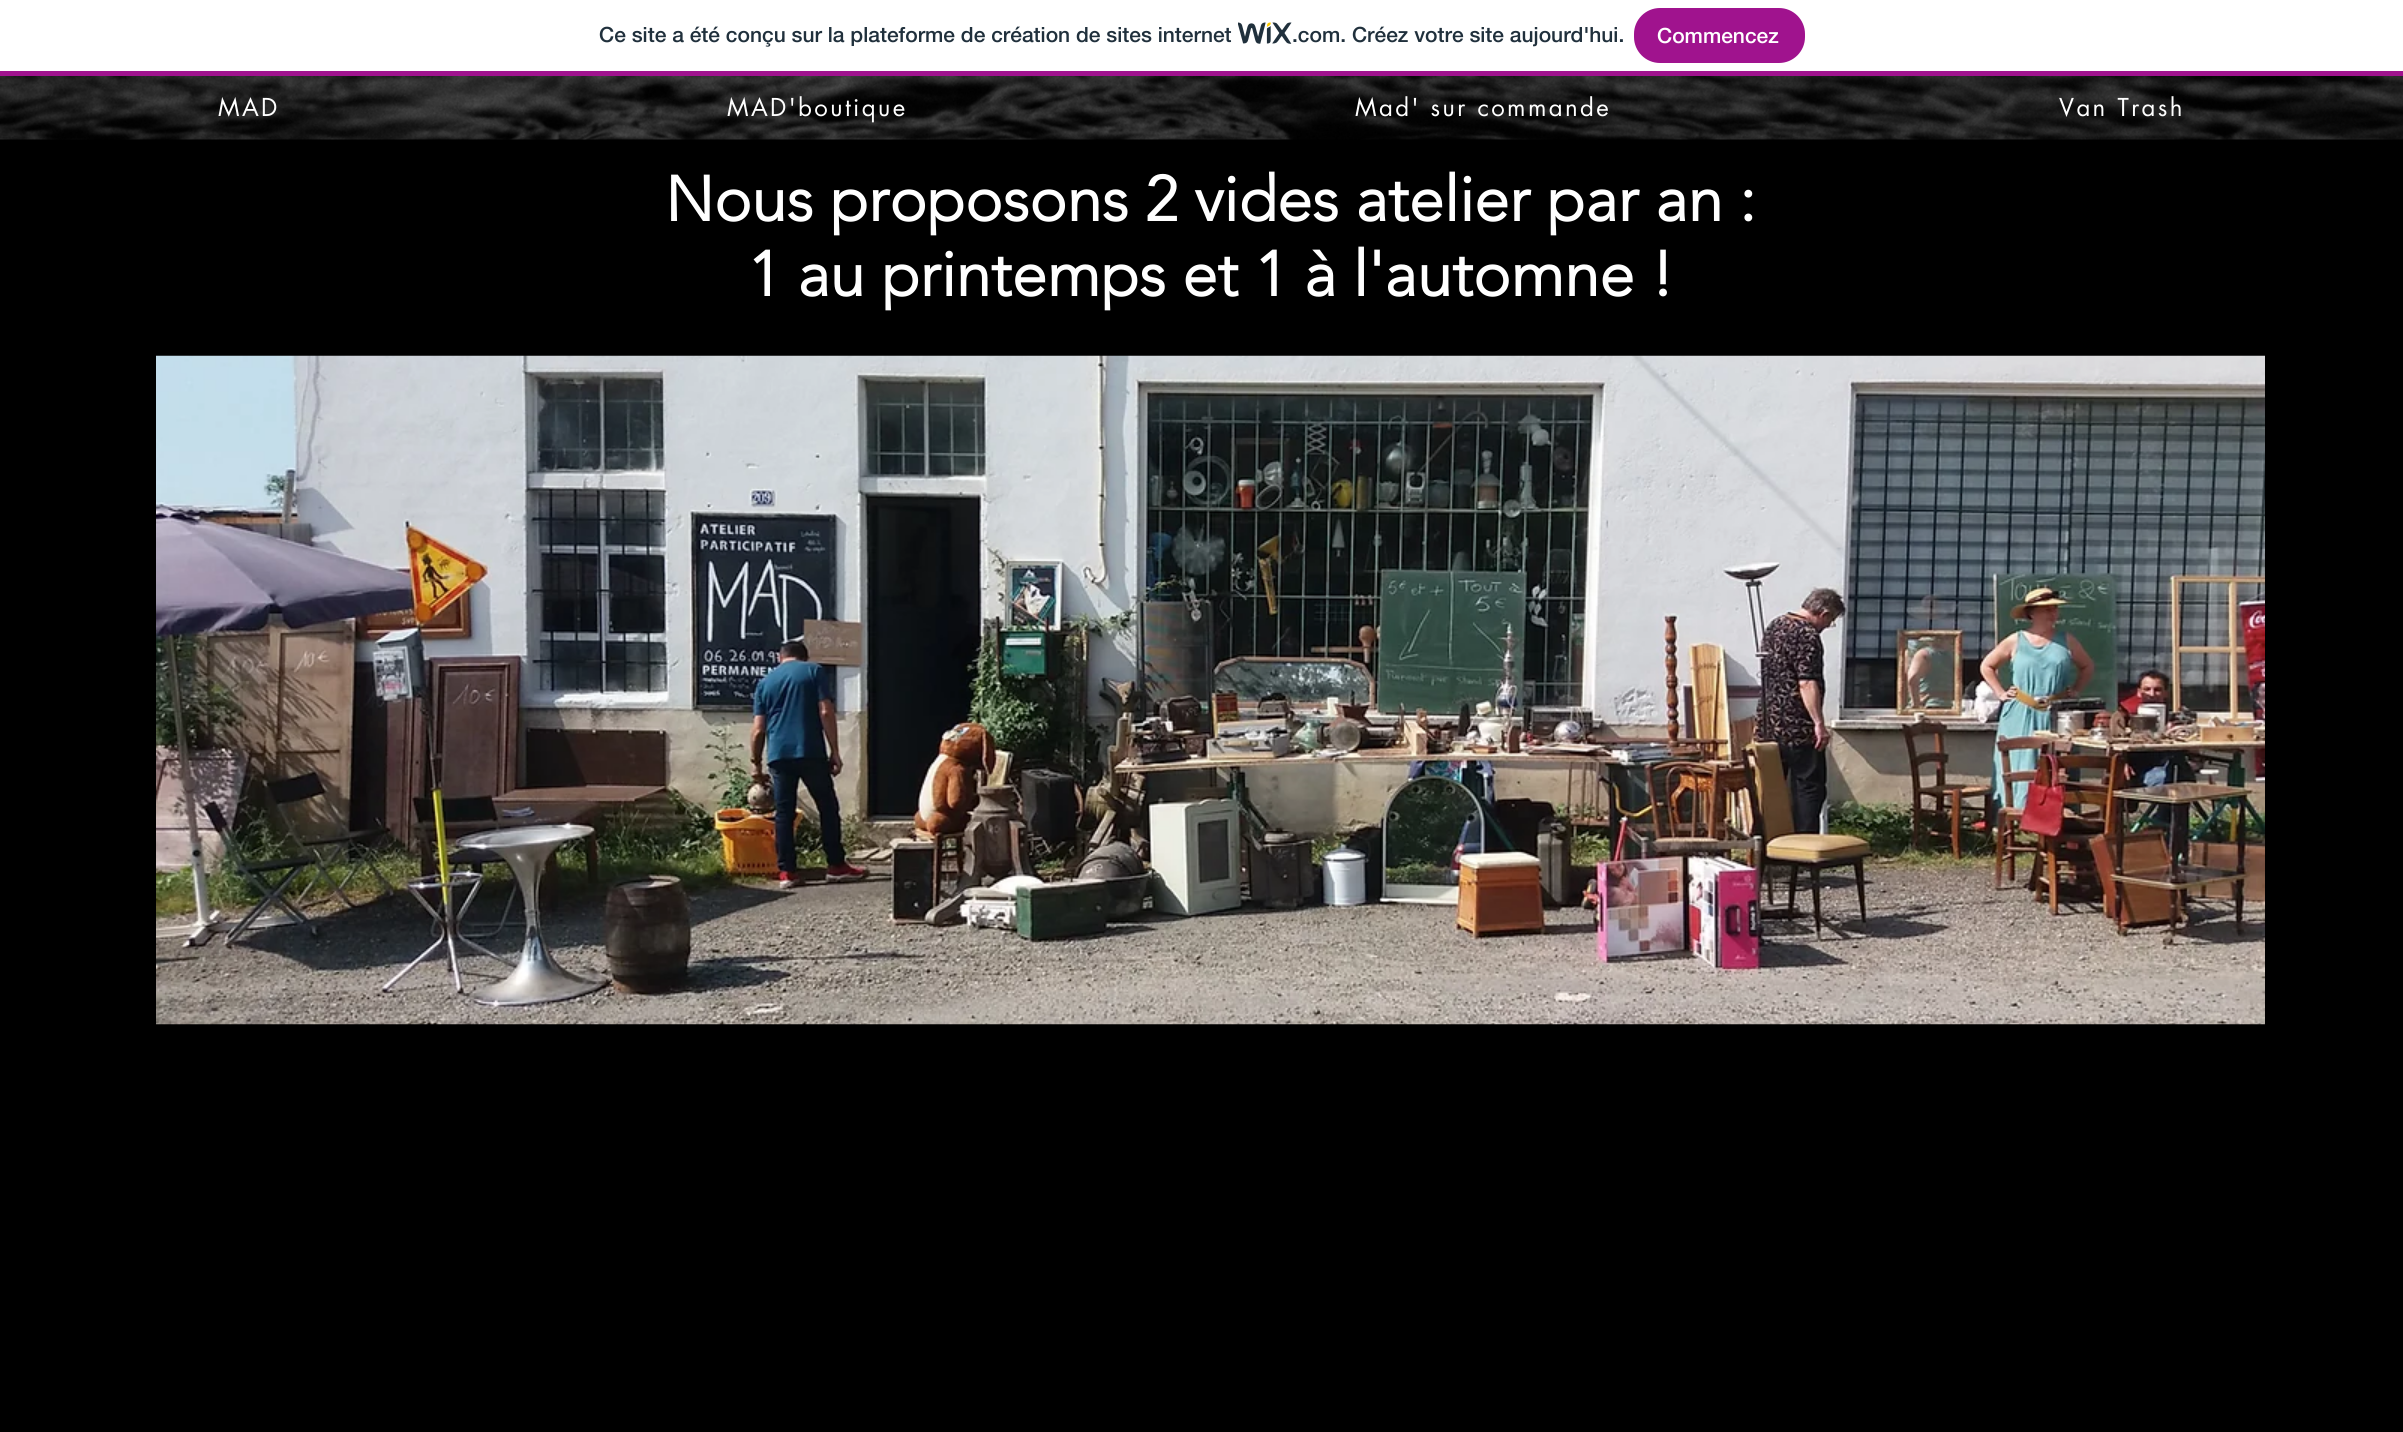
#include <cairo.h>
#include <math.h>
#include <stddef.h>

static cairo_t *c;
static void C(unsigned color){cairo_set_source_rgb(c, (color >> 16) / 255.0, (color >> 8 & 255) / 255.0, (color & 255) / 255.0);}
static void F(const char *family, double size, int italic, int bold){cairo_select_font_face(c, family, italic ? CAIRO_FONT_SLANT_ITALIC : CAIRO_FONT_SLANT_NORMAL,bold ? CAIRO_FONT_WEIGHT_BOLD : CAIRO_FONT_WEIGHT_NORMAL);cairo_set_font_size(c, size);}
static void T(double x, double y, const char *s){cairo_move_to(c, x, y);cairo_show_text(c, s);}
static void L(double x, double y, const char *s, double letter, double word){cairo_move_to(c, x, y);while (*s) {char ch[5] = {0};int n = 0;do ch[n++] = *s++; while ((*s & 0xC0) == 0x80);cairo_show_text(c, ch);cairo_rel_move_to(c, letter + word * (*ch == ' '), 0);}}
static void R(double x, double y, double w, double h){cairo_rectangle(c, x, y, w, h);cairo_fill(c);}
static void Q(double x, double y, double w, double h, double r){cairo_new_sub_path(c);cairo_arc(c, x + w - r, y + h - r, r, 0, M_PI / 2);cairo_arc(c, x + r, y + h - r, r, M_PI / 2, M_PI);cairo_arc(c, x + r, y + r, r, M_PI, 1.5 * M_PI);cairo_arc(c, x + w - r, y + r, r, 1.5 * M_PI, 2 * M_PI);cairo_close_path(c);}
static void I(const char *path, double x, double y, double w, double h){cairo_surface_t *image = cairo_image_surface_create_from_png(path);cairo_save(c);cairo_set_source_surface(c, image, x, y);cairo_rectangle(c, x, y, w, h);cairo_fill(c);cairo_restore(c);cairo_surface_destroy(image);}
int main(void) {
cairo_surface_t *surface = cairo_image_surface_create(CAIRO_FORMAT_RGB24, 2403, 1432);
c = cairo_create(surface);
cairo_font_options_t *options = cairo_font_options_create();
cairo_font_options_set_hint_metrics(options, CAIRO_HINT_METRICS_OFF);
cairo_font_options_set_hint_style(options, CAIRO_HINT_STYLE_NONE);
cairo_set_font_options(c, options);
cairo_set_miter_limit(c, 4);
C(0xffffff);
cairo_paint(c);
C(0xa0138e);
R(0,71,2403,5);
F("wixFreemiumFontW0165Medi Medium",21,0,0);
C(0x20303c);
T(599,42,"Ce site a été conçu sur la plateforme de création de sites internet");
I("1.png",1238,22,54,22);
T(1292,42,".com. Créez votre site aujourd'hui.");
C(0xa0138e);
Q(1635,9,169,53,25);
cairo_fill_preserve(c);
cairo_stroke(c);
C(0xffffff);
T(1657,43,"Commencez");
C(0x000000);
R(0,139,2403,1293);
I("2.png",0,76,2403,64);
F("futura",24,0,0);
C(0xffffff);
L(218,116,"MAD",2.4,0);
L(727,116,"MAD'boutique",2.4,0);
L(1355,116,"Mad' sur commande",2.4,0);
L(2059,116,"Van Trash",2.4,0);
F("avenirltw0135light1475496",63,0,1);
T(665,221,"Nous proposons 2 vides atelier par an :");
T(748,296,"1 au printemps et 1 à l'automne !");
I("3.png",156,355,2109,670);
cairo_surface_write_to_png(surface, "o.png");
cairo_font_options_destroy(options);
cairo_destroy(c);
cairo_surface_destroy(surface);
return 0;
}
